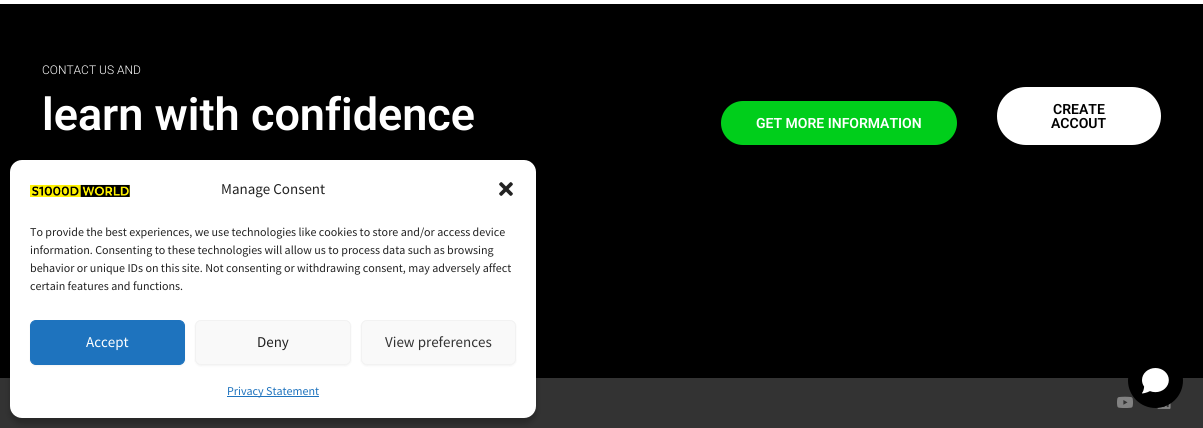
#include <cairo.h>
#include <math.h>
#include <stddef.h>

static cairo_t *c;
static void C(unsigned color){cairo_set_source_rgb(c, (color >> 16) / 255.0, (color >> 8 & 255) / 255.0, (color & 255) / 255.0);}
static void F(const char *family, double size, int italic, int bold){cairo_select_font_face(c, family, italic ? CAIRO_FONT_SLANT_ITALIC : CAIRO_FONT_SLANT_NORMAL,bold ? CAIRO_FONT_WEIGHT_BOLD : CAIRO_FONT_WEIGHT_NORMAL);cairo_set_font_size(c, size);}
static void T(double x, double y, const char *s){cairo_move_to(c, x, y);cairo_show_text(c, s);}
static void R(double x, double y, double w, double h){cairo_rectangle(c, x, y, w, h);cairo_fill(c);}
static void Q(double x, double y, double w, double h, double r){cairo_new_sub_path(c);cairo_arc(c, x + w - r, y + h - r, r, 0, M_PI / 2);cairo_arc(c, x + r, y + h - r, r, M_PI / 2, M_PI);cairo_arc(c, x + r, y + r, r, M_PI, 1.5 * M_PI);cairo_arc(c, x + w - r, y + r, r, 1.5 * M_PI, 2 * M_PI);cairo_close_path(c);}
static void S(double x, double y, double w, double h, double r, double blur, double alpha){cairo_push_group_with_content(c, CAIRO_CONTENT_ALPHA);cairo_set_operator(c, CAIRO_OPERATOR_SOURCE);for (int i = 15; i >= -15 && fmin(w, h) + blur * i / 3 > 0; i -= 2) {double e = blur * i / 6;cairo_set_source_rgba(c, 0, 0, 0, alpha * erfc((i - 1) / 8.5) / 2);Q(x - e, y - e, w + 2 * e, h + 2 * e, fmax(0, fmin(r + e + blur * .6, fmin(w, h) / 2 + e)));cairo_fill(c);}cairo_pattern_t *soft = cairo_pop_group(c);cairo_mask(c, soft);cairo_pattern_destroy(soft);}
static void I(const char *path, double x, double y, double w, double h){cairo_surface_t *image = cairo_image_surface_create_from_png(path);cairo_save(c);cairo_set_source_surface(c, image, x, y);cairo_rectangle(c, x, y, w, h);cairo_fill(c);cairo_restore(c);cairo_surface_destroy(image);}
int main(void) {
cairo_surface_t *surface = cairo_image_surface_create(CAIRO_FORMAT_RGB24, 1203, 428);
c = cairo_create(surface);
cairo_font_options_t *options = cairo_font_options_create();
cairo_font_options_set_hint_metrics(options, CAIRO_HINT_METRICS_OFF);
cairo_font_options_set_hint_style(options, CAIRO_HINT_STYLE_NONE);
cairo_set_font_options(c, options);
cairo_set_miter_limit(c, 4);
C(0xffffff);
cairo_paint(c);
C(0x000000);
R(0,4,1203,374);
F("Roboto Light",12,0,0);
C(0xffffff);
T(42,74,"CONTACT US AND");
F("Roboto SemiBold",45,0,0);
T(42,130,"learn with confidence");
C(0x00ce1b);
Q(721,101,236,44,22);
cairo_fill(c);
F("Roboto SemiBold",14,0,0);
C(0xffffff);
T(756,128,"GET MORE INFORMATION");
Q(997,87,164,58,29);
cairo_fill(c);
C(0x000000);
T(1053,114,"CREATE");
T(1051,128,"ACCOUT");
C(0x333333);
R(0,378,1203,50);
I("1.png",1117,396,16,12);
I("2.png",1157,403,14,6);
C(0x000000);
S(10,166,526,258,12,3,.23);
C(0xffffff);
Q(10,160,526,258,12);
cairo_fill(c);
I("3.png",30,184,100,13);
F("Source Sans Pro",15,0,0);
C(0x222222);
T(221,194,"Manage Consent");
I("4.png",499,182,14,14);
F("Source Sans Pro",12,0,0);
T(30,236,"To provide the best experiences, we use technologies like cookies to store and/or access device");
T(30,254,"information. Consenting to these technologies will allow us to process data such as browsing");
T(30,272,"behavior or unique IDs on this site. Not consenting or withdrawing consent, may adversely affect");
T(30,290,"certain features and functions.");
C(0x000000);
S(30,321,155,45,6,1,.05);
C(0x1e73be);
Q(30.5,320.5,154,44,5.5);
cairo_fill_preserve(c);
cairo_set_line_width(c,1);
cairo_stroke(c);
F("Source Sans Pro",15,0,0);
C(0xffffff);
T(86,347,"Accept");
C(0x000000);
S(195,321,156,45,6,1,.05);
C(0xf9f9f9);
Q(195.5,320.5,155,44,5.5);
cairo_fill_preserve(c);
C(0xf2f2f2);
cairo_stroke(c);
C(0x222222);
T(257,347,"Deny");
C(0x000000);
S(361,321,155,45,6,1,.05);
C(0xf9f9f9);
Q(361.5,320.5,154,44,5.5);
cairo_fill_preserve(c);
C(0xf2f2f2);
cairo_stroke(c);
C(0x333333);
T(385,347,"View preferences");
C(0x1e73be);
R(227,396,92,1);
F("Source Sans Pro",12,0,0);
T(227,395,"Privacy Statement");
C(0x000000);
cairo_new_path(c);
cairo_arc(c,1155.5,380.5,27.5,0,2 * M_PI);
cairo_fill(c);
I("5.png",1142,368,27,26);
cairo_surface_write_to_png(surface, "o.png");
cairo_font_options_destroy(options);
cairo_destroy(c);
cairo_surface_destroy(surface);
return 0;
}
